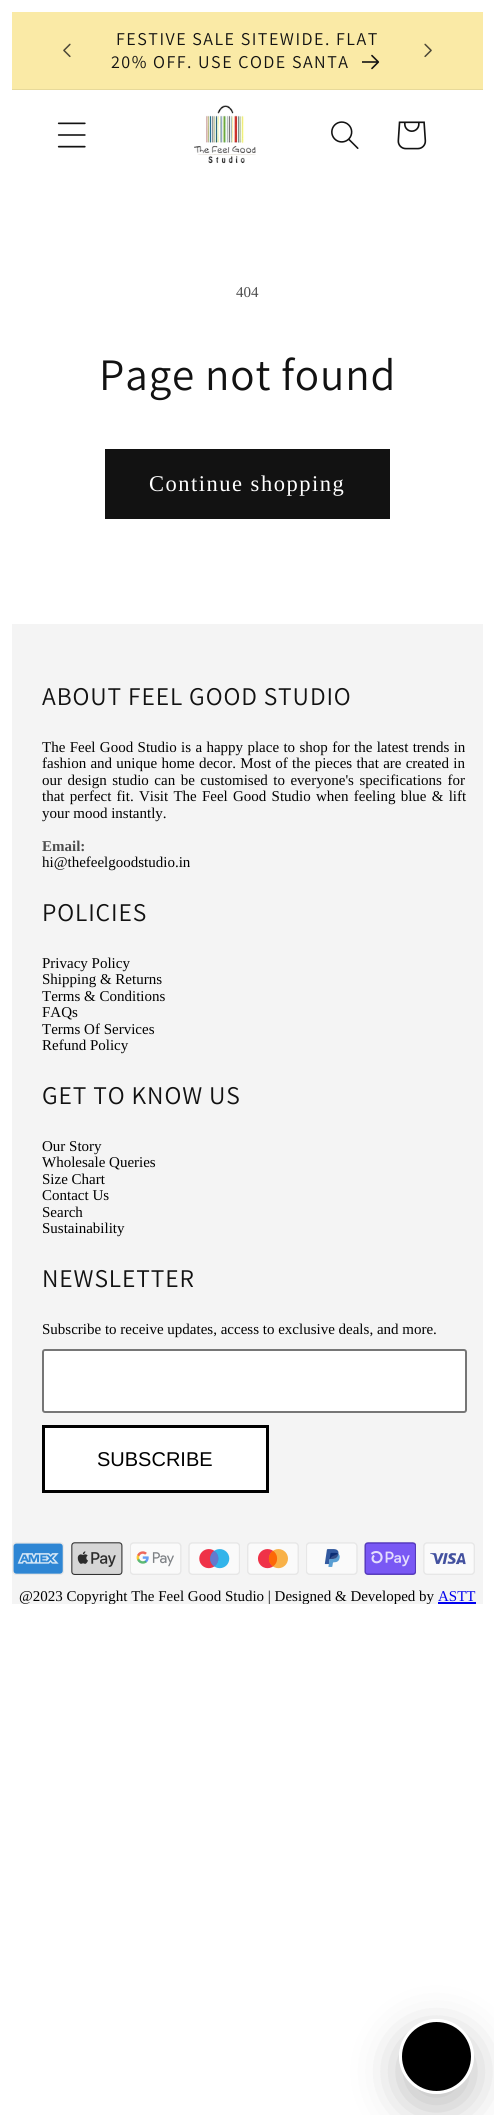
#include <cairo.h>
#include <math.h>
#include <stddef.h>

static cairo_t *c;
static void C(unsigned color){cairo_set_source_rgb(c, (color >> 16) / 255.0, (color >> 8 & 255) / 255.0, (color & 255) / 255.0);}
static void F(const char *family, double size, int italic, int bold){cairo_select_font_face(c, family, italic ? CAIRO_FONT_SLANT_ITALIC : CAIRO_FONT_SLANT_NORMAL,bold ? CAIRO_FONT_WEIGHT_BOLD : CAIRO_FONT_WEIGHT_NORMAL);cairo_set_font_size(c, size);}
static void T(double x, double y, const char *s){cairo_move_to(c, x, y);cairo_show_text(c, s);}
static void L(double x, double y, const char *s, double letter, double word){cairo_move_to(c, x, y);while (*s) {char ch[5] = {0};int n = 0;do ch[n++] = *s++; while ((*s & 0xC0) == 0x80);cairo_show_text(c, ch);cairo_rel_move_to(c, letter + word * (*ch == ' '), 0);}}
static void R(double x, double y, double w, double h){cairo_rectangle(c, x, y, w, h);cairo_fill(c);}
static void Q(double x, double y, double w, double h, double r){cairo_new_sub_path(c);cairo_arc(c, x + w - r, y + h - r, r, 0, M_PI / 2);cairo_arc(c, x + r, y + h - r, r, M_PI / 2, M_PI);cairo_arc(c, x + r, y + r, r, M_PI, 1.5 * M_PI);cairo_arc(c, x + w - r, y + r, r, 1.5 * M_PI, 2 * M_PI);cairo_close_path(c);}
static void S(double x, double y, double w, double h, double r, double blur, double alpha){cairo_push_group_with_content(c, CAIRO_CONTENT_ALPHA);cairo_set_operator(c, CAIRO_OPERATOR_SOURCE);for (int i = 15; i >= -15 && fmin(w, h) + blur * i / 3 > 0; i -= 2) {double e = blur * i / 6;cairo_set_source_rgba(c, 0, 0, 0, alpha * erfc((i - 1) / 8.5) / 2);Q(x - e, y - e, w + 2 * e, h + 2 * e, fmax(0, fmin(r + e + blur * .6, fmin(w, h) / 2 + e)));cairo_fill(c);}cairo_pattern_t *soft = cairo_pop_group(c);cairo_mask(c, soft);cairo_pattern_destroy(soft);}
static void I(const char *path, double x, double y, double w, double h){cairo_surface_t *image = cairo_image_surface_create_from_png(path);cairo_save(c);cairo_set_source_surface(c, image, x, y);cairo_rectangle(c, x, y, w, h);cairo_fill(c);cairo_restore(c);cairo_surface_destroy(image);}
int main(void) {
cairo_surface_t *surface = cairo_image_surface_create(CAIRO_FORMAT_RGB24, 494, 2115);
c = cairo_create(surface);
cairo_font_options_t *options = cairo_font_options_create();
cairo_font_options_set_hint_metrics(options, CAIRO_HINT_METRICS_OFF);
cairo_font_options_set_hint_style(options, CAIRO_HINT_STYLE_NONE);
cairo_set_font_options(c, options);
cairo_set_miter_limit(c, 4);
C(0xffffff);
cairo_paint(c);
C(0xfaeaa6);
R(12,12,471,77);
C(0xe7d99a);
R(12,89,471,1);
I("1.png",63,43,8,15);
F("Assistant",18,0,0);
C(0x121212);
L(116,45,"FESTIVE SALE SITEWIDE. FLAT",1.5,0);
L(111,68,"20% OFF. USE CODE SANTA",1.5,0);
I("2.png",362,54,18,16);
I("3.png",424,43,8,15);
I("4.png",57,122,29,26);
I("5.png",194,105,62,59);
I("6.png",331,121,28,28);
I("7.png",397,121,30,29);
F("Liberation Serif",15,0,0);
C(0x4d4d4d);
T(236,297,"404");
F("Assistant",45,0,0);
C(0x121212);
L(99,390,"Page not found",.9,0);
R(105,449,285,70);
F("Liberation Serif",22.5,0,0);
C(0xffffff);
L(149,491,"Continue shopping",1.5,0);
C(0xf4f4f4);
R(12,624,471,980);
F("Assistant",25.5,0,0);
C(0x121212);
L(42,705,"ABOUT FEEL GOOD STUDIO",.9,0);
F("Liberation Serif",15,0,0);
C(0x000000);
L(42,752,"The Feel Good Studio is a happy place to shop for the latest trends in",0,.6);
L(42,768,"fashion and unique home decor. Most of the pieces that are created in",0,.5);
L(42,785,"our design studio can be customised to everyone's specifications for",0,1.75);
L(42,801,"that perfect fit. Visit The Feel Good Studio when feeling blue & lift",0,1.5);
T(42,818,"your mood instantly.");
F("Liberation Serif",15,0,1);
C(0x4d4d4d);
T(42,851,"Email:");
F("Liberation Serif",15,0,0);
C(0x000000);
T(42,867,"hi@thefeelgoodstudio.in");
F("Assistant",25.5,0,0);
C(0x121212);
L(42,921,"POLICIES",.9,0);
F("Liberation Serif",15,0,0);
C(0x000000);
T(42,968,"Privacy Policy");
T(42,984,"Shipping & Returns");
T(42,1001,"Terms & Conditions");
T(42,1017,"FAQs");
T(42,1034,"Terms Of Services");
T(42,1050,"Refund Policy");
F("Assistant",25.5,0,0);
C(0x121212);
L(42,1104,"GET TO KNOW US",.9,0);
F("Liberation Serif",15,0,0);
C(0x000000);
T(42,1151,"Our Story");
T(42,1167,"Wholesale Queries");
T(42,1184,"Size Chart");
T(42,1200,"Contact Us");
T(42,1217,"Search");
T(42,1233,"Sustainability");
F("Assistant",25.5,0,0);
C(0x121212);
L(42,1287,"NEWSLETTER",.9,0);
F("Liberation Serif",15,0,0);
C(0x000000);
T(42,1334,"Subscribe to receive updates, access to exclusive deals, and more.");
C(0xffffff);
Q(43,1350,423,62,2);
cairo_fill_preserve(c);
C(0x767676);
cairo_stroke(c);
C(0xffffff);
cairo_rectangle(c,43.5,1426.5,224,65);
cairo_fill_preserve(c);
C(0x000000);
cairo_set_line_width(c,3);
cairo_stroke(c);
F("Liberation Sans",20,0,0);
T(97,1466,"SUBSCRIBE");
I("8.png",12,1542,463,33);
cairo_save(c);
cairo_rectangle(c,12,624,471,980);
cairo_clip(c);
F("Liberation Serif",15,0,0);
T(19,1601,"@2023 Copyright The Feel Good Studio | Designed & Developed by");
cairo_restore(c);
F("Liberation Serif",15,0,0);
C(0x0000ee);
T(438,1601,"ASTT");
R(438,1602,38,2);
cairo_save(c);
cairo_set_fill_rule(c,CAIRO_FILL_RULE_EVEN_ODD);
cairo_new_path(c);
cairo_move_to(c,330,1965);
cairo_line_to(c,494,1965);
cairo_line_to(c,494,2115);
cairo_line_to(c,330,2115);
cairo_close_path(c);
cairo_move_to(c,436.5,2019);
cairo_curve_to(c,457,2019,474,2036,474,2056.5);
cairo_curve_to(c,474,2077,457,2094,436.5,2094);
cairo_curve_to(c,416,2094,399,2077,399,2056.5);
cairo_curve_to(c,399,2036,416,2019,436.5,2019);
cairo_close_path(c);
cairo_clip(c);
C(0x000000);
S(399,2034,75,75,37.5,22.5,.25);
cairo_restore(c);
I("9.png",402,2022,69,69);
cairo_surface_write_to_png(surface, "o.png");
cairo_font_options_destroy(options);
cairo_destroy(c);
cairo_surface_destroy(surface);
return 0;
}
